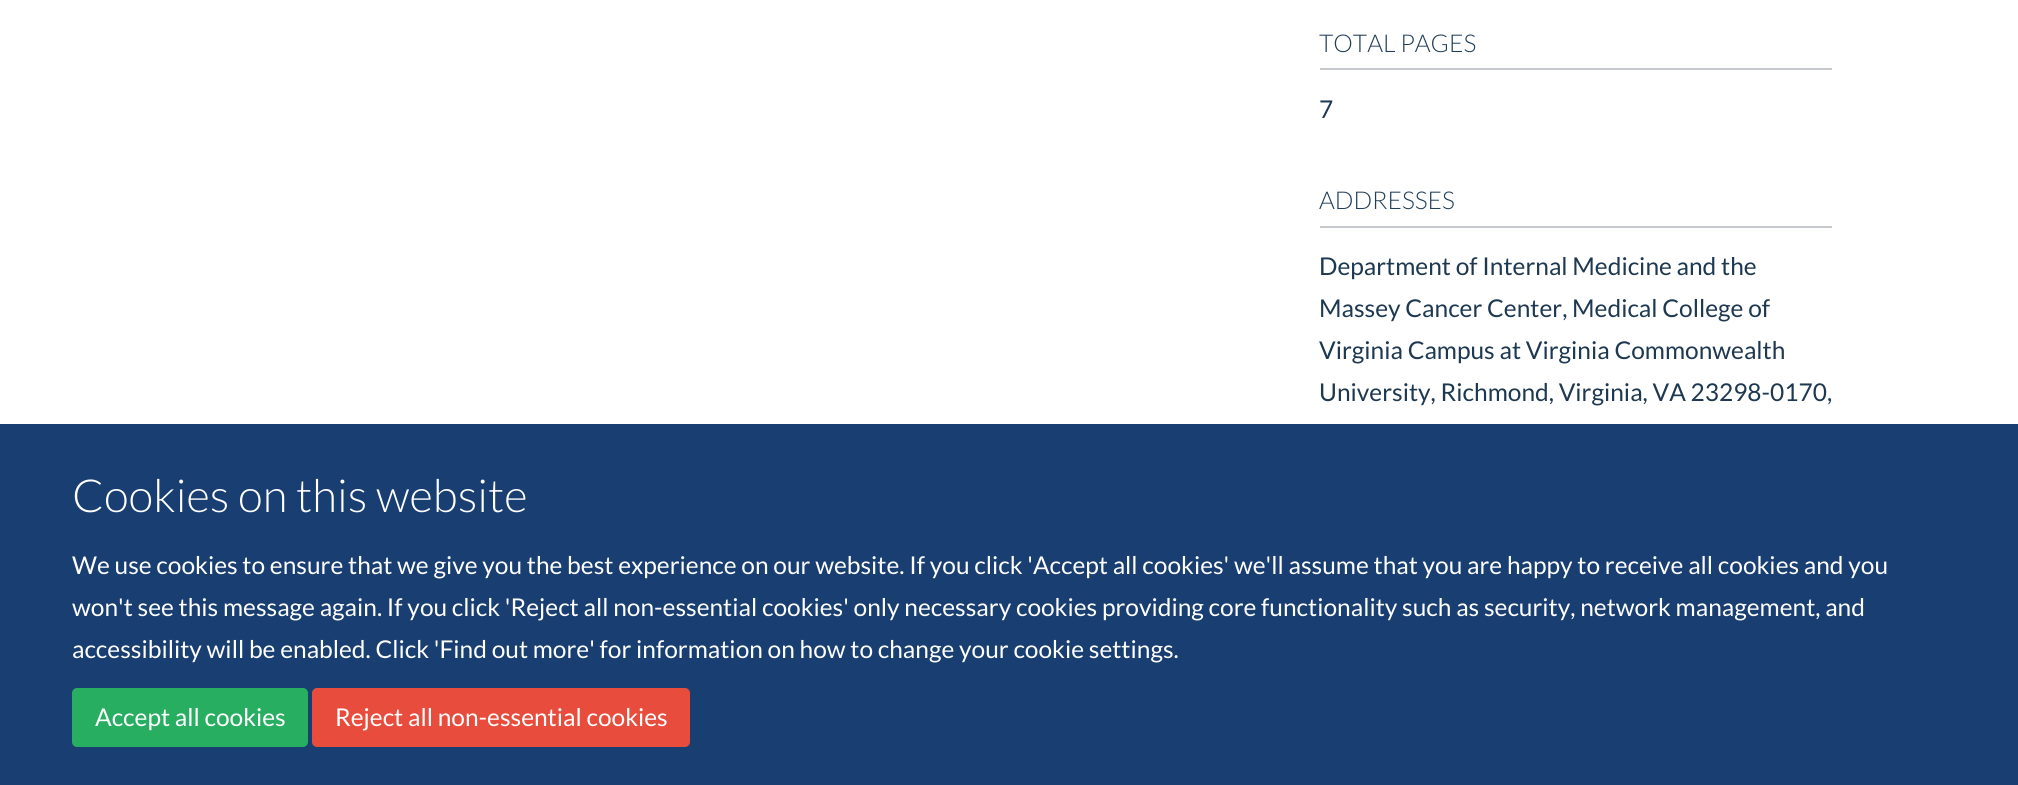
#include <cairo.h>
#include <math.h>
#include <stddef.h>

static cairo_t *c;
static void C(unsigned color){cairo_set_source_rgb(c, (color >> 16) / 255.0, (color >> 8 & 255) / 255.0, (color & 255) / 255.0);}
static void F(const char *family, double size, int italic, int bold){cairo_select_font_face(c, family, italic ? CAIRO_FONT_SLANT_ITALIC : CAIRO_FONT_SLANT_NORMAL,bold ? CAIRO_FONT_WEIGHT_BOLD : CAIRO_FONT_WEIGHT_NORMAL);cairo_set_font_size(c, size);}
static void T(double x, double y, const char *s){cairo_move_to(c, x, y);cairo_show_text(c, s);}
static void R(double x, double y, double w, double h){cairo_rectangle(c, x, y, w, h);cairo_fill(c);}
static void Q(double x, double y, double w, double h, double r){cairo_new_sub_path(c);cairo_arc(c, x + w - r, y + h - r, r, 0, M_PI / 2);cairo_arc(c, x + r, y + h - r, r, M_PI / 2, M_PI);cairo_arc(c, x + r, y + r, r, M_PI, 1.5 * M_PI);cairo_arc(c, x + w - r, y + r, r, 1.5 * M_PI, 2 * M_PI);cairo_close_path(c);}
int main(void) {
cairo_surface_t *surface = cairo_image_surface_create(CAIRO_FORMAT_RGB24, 2018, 785);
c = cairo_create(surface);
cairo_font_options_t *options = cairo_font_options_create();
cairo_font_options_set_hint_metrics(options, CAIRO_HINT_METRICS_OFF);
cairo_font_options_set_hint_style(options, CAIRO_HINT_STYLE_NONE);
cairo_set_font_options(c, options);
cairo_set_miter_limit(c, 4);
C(0xffffff);
cairo_paint(c);
C(0xc6cacf);
R(1320,68,512,2);
F("Lato Light",24.5,0,0);
C(0x203e58);
T(1319,52,"TOTAL PAGES");
F("Lato",24.5,0,0);
C(0x1d3850);
T(1319,118,"7");
C(0xc6cacf);
R(1320,226,512,2);
F("Lato Light",24.5,0,0);
C(0x203e58);
T(1319,209,"ADDRESSES");
F("Lato",24.5,0,0);
C(0x1d3850);
T(1319,275,"Department of Internal Medicine and the");
T(1319,317,"Massey Cancer Center, Medical College of");
T(1319,359,"Virginia Campus at Virginia Commonwealth");
T(1319,401,"University, Richmond, Virginia, VA 23298-0170,");
C(0x193e72);
R(0,424,2018,361);
F("Lato Light",45.5,0,0);
C(0xffffff);
T(72,512,"Cookies on this website");
F("Lato",24.5,0,0);
T(72,574,"We use cookies to ensure that we give you the best experience on our website. If you click 'Accept all cookies' we'll assume that you are happy to receive all cookies and you");
T(72,616,"won't see this message again. If you click 'Reject all non-essential cookies' only necessary cookies providing core functionality such as security, network management, and");
T(72,658,"accessibility will be enabled. Click 'Find out more' for information on how to change your cookie settings.");
C(0x27ae60);
Q(73,689,234,57,4);
cairo_fill_preserve(c);
cairo_stroke(c);
C(0xffffff);
T(95,726,"Accept all cookies");
C(0xe74c3c);
Q(313,689,376,57,4);
cairo_fill_preserve(c);
cairo_stroke(c);
C(0xffffff);
T(335,726,"Reject all non-essential cookies");
cairo_surface_write_to_png(surface, "o.png");
cairo_font_options_destroy(options);
cairo_destroy(c);
cairo_surface_destroy(surface);
return 0;
}
